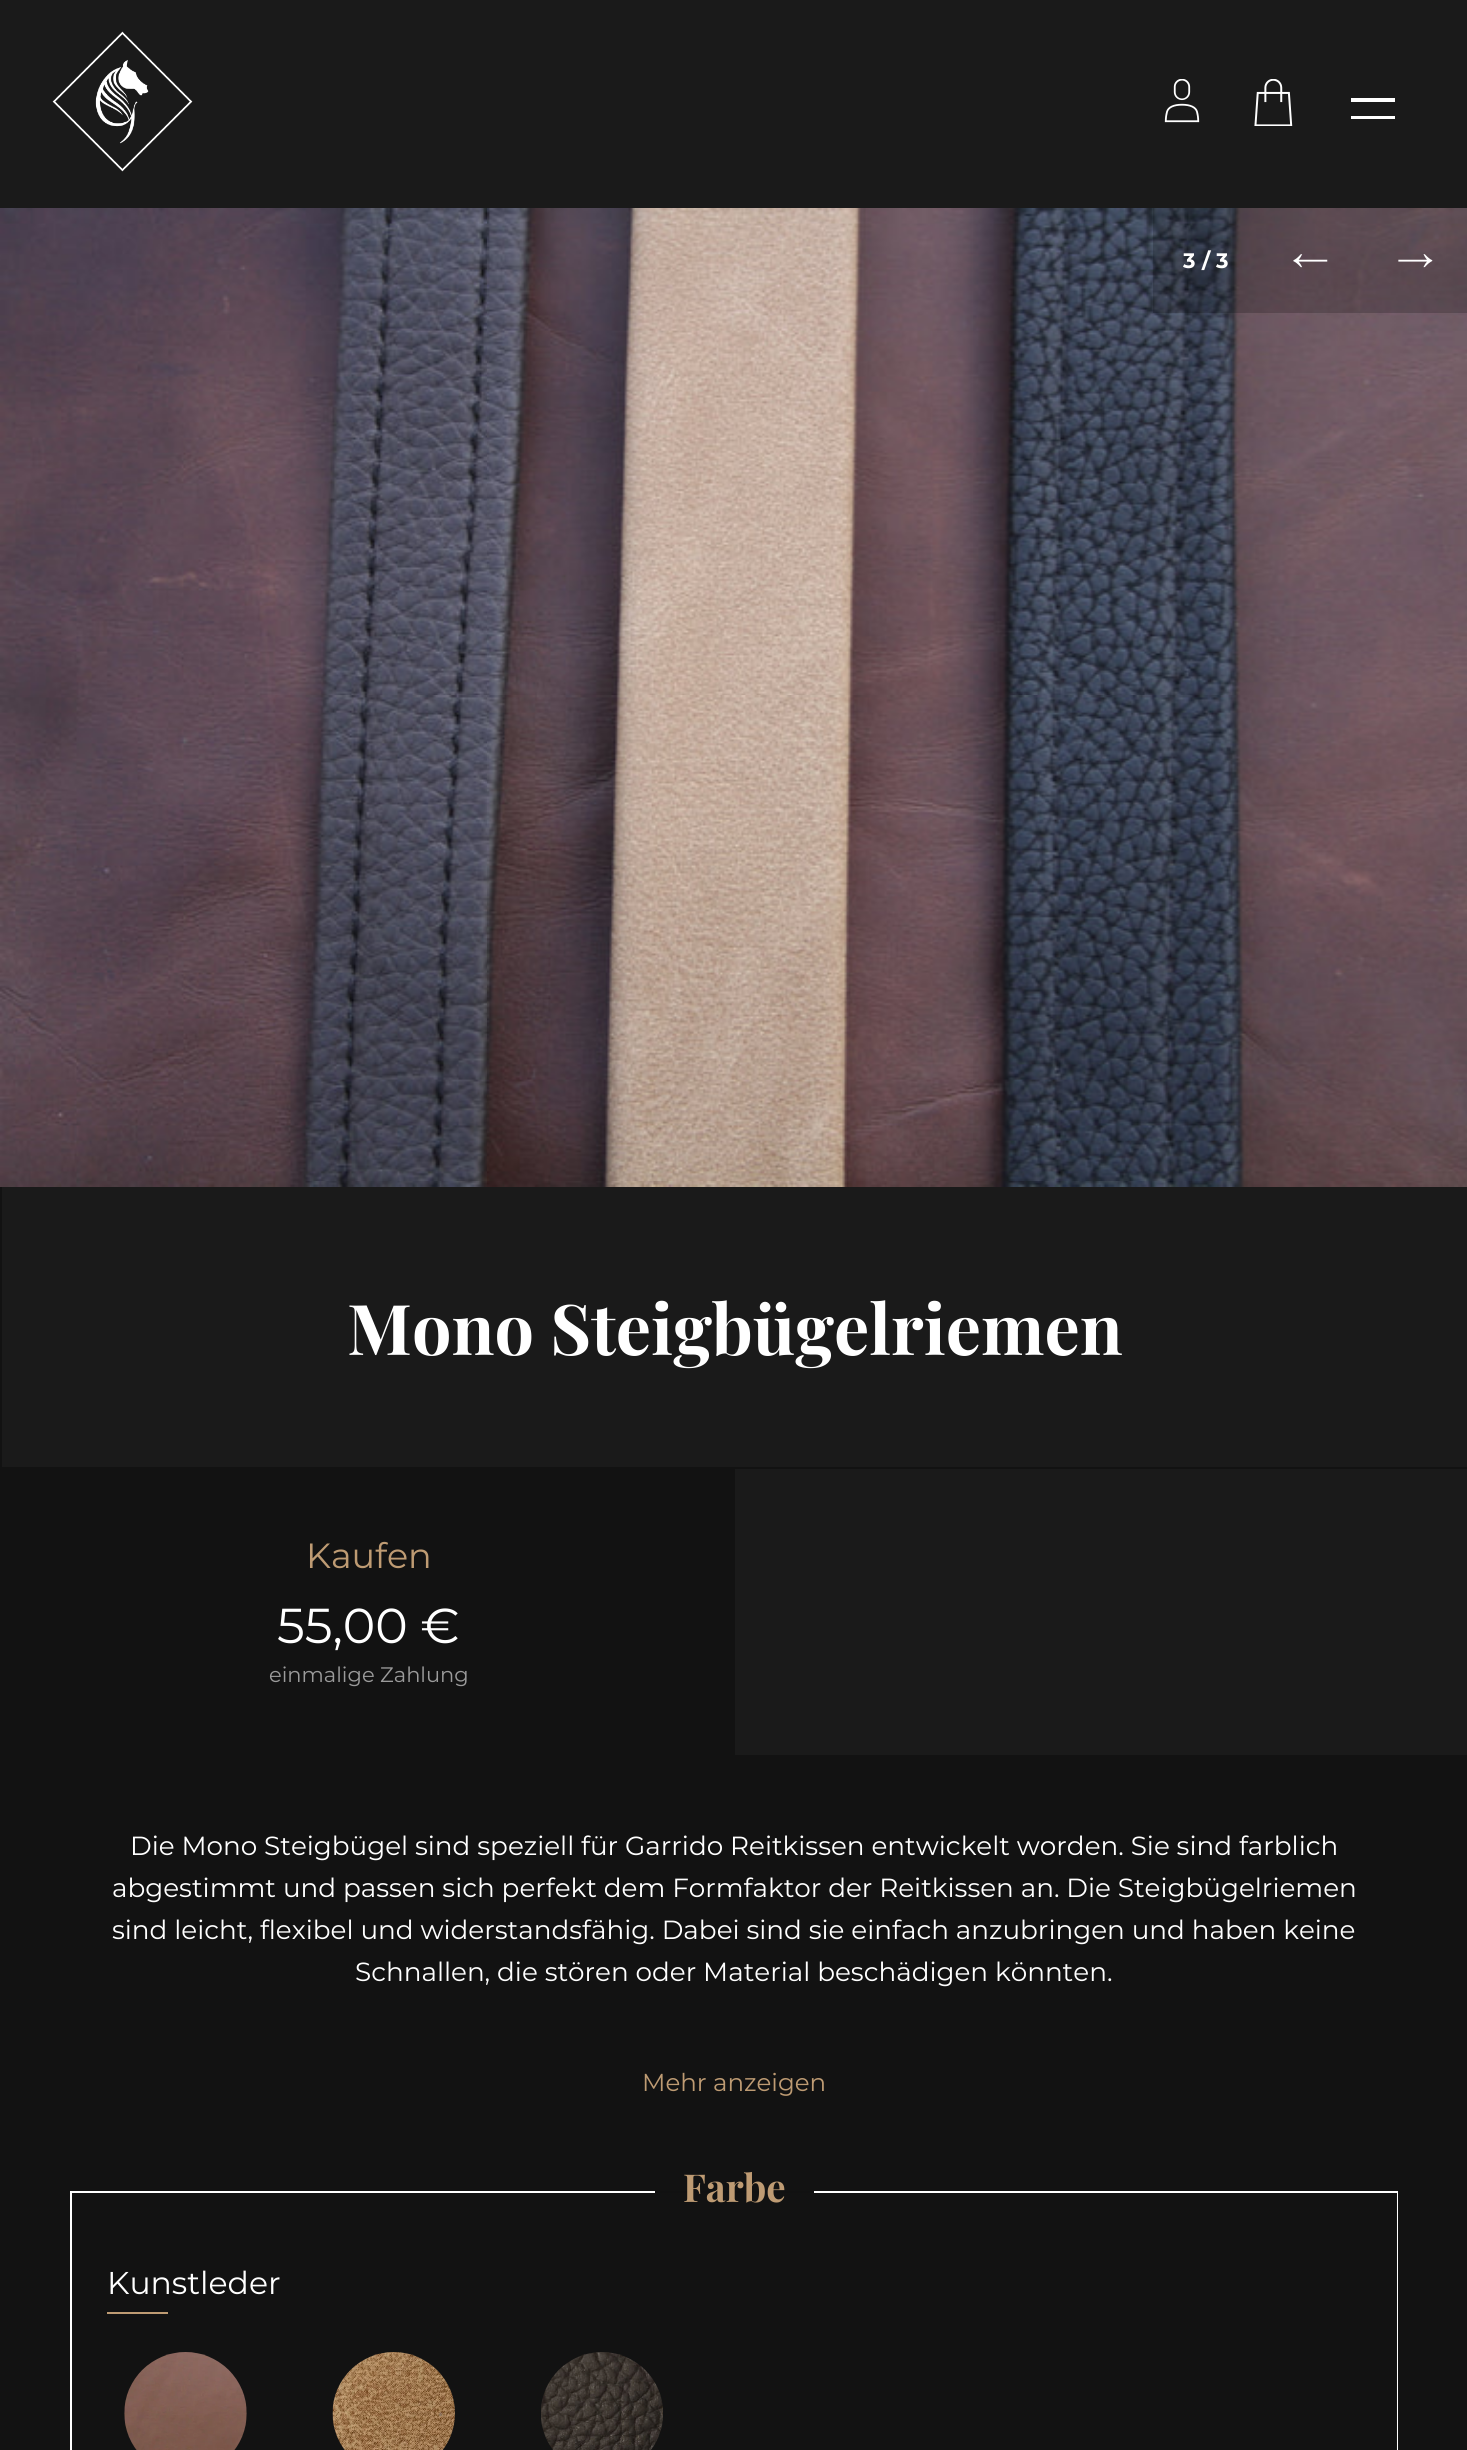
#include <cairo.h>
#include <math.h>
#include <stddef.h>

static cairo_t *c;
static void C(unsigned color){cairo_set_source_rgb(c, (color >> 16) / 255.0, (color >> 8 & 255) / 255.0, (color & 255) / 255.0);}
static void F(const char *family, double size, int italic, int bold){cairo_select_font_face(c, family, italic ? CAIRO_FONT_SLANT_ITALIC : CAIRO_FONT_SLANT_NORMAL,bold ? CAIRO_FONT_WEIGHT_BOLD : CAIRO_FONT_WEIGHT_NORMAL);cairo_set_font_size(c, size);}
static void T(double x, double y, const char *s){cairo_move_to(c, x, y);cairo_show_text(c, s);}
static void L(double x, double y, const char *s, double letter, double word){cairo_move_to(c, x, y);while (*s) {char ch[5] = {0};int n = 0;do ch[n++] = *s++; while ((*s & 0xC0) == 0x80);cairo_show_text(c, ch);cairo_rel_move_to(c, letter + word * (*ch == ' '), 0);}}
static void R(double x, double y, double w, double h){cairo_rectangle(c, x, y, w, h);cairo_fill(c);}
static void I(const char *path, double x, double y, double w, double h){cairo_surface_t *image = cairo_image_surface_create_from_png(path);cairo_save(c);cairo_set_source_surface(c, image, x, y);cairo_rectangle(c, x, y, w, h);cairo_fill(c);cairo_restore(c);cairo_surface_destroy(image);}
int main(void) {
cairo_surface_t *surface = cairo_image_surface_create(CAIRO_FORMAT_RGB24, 1467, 2450);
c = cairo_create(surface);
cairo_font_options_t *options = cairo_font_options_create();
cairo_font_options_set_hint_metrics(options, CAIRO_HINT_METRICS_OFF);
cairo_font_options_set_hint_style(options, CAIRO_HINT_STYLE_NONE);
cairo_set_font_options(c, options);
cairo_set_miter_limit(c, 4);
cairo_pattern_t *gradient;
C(0x121212);
cairo_paint(c);
C(0x1a1a1a);
R(0,0,1467,208);
I("1.png",52,31,141,141);
I("2.png",1164,79,36,44);
I("3.png",1254,79,39,47);
C(0xffffff);
R(1351,98,44,4);
R(1351,116,44,3);
I("4.png",0,208,1467,979);
cairo_set_source_rgba(c,0,0,0,0.2);
R(1153,208,105,105);
F("Montserrat",21,0,1);
C(0xffffff);
T(1183,268,"3");
L(1202,268,"/",-4,0);
T(1216,268,"3");
cairo_set_source_rgba(c,0,0,0,0.2);
R(1258,208,105,105);
I("5.png",1293,254,35,14);
R(1363,208,104,105);
I("6.png",1398,254,35,14);
C(0x1a1a1a);
R(2,1187,1465,568);
F("Playfair Display",70,0,1);
C(0xffffff);
T(347,1355,"Mono Steigbügelriemen");
C(0x121212);
R(2,1467,1465,2);
R(2,1469,733,286);
F("Montserrat",35,0,0);
C(0xbe9b73);
T(306,1568,"Kaufen");
F("Montserrat",49,0,0);
C(0xffffff);
T(277,1643,"55,00 €");
F("Montserrat",21,0,0);
C(0x9b9b9b);
T(269,1682,"einmalige Zahlung");
F("Montserrat",26.25,0,0);
C(0xffffff);
T(130,1855,"Die Mono Steigbügel sind speziell für Garrido Reitkissen entwickelt worden. Sie sind farblich");
T(112,1897,"abgestimmt und passen sich perfekt dem Formfaktor der Reitkissen an. Die Steigbügelriemen");
T(112,1939,"sind leicht, flexibel und widerstandsfähig. Dabei sind sie einfach anzubringen und haben keine");
T(355,1981,"Schnallen, die stören oder Material beschädigen könnten.");
F("Montserrat",24.5,0,0);
C(0xbe9b73);
T(642,2091,"Mehr anzeigen");
cairo_rectangle(c,71,2192,1326,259);
C(0xffffff);
cairo_stroke(c);
C(0x111111);
R(655,2191,159,2);
F("Playfair Display",38.5,0,1);
C(0xbe9b73);
T(683,2202,"Farbe");
F("Montserrat",31.5,0,0);
C(0xffffff);
T(107,2294,"Kunstleder");
C(0xbe9b73);
R(107,2312,61,2);
I("7.png",124,2352,123,98);
I("8.png",332,2352,123,98);
I("9.png",541,2352,122,98);
gradient = cairo_pattern_create_linear(1370,2396,1397,2396);
cairo_pattern_add_color_stop_rgba(gradient,0,0.067,0.067,0.067,0);
cairo_pattern_add_color_stop_rgba(gradient,1,0.067,0.067,0.067,1);
cairo_set_source(c,gradient);
cairo_pattern_destroy(gradient);
R(1396,2193,1,257);
cairo_surface_write_to_png(surface, "o.png");
cairo_font_options_destroy(options);
cairo_destroy(c);
cairo_surface_destroy(surface);
return 0;
}
